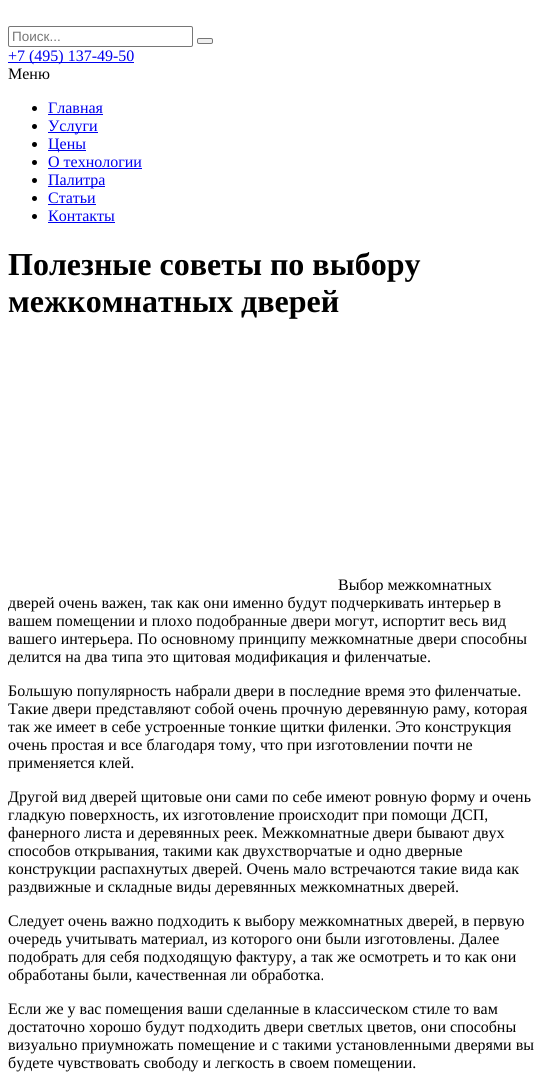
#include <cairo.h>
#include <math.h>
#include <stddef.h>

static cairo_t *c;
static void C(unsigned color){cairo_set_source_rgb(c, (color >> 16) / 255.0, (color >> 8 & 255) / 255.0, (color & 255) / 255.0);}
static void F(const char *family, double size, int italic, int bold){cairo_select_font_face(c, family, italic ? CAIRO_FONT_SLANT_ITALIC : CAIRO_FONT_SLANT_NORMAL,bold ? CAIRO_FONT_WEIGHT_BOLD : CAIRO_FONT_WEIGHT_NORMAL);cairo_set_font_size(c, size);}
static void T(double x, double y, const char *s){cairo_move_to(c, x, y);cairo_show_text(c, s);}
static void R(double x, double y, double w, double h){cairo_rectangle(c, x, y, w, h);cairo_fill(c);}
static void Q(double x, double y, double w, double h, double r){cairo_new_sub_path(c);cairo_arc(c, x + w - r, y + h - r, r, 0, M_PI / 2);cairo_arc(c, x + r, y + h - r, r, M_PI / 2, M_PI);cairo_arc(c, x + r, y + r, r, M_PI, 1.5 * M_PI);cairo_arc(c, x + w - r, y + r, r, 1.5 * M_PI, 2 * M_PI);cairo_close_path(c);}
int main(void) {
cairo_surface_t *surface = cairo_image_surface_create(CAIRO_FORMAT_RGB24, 543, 1091);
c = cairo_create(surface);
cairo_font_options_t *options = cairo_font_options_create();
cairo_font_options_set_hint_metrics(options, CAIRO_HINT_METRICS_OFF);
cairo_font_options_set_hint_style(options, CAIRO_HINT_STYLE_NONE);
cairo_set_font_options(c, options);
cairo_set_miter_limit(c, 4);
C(0xffffff);
cairo_paint(c);
Q(8.5,26.5,184,20,1.5);
C(0x767676);
cairo_set_line_width(c,1);
cairo_stroke(c);
F("Liberation Sans",13.5,0,0);
C(0x757575);
T(12,41,"Поиск...");
C(0xefefef);
Q(197.5,38.5,15,5,1.5);
cairo_fill_preserve(c);
C(0x767676);
cairo_stroke(c);
C(0x0000ee);
R(8,62,126,1);
F("Liberation Serif",16,0,0);
T(8,61,"+7 (495) 137-49-50");
C(0x000000);
T(8,79,"Меню");
cairo_new_path(c);
cairo_arc(c,34.5,108.5,2.5,0,2 * M_PI);
cairo_fill(c);
C(0x0000ee);
T(48,113,"Главная");
R(48,114,55,1);
C(0x000000);
cairo_new_path(c);
cairo_arc(c,34.5,126.5,2.5,0,2 * M_PI);
cairo_fill(c);
C(0x0000ee);
R(48,132,50,1);
T(48,131,"Услуги");
C(0x000000);
cairo_new_path(c);
cairo_arc(c,34.5,144.5,2.5,0,2 * M_PI);
cairo_fill(c);
C(0x0000ee);
R(48,150,38,1);
T(48,149,"Цены");
C(0x000000);
cairo_new_path(c);
cairo_arc(c,34.5,162.5,2.5,0,2 * M_PI);
cairo_fill(c);
C(0x0000ee);
T(48,167,"О технологии");
R(48,168,94,1);
C(0x000000);
cairo_new_path(c);
cairo_arc(c,34.5,180.5,2.5,0,2 * M_PI);
cairo_fill(c);
C(0x0000ee);
R(48,186,57,1);
T(48,185,"Палитра");
C(0x000000);
cairo_new_path(c);
cairo_arc(c,34.5,198.5,2.5,0,2 * M_PI);
cairo_fill(c);
C(0x0000ee);
T(48,203,"Статьи");
R(48,204,48,1);
C(0x000000);
cairo_new_path(c);
cairo_arc(c,34.5,216.5,2.5,0,2 * M_PI);
cairo_fill(c);
C(0x0000ee);
T(48,221,"Контакты");
R(48,222,67,1);
F("Liberation Serif",32,0,1);
C(0x000000);
T(8,275,"Полезные советы по выбору");
T(8,312,"межкомнатных дверей");
F("Liberation Serif",16,0,0);
T(338,590,"Выбор межкомнатных");
T(8,608,"дверей очень важен, так как они именно будут подчеркивать интерьер в");
T(8,626,"вашем помещении и плохо подобранные двери могут, испортит весь вид");
T(8,644,"вашего интерьера. По основному принципу межкомнатные двери способны");
T(8,662,"делится на два типа это щитовая модификация и филенчатые.");
T(8,696,"Большую популярность набрали двери в последние время это филенчатые.");
T(8,714,"Такие двери представляют собой очень прочную деревянную раму, которая");
T(8,732,"так же имеет в себе устроенные тонкие щитки филенки. Это конструкция");
T(8,750,"очень простая и все благодаря тому, что при изготовлении почти не");
T(8,768,"применяется клей.");
T(8,802,"Другой вид дверей щитовые они сами по себе имеют ровную форму и очень");
T(8,820,"гладкую поверхность, их изготовление происходит при помощи ДСП,");
T(8,838,"фанерного листа и деревянных реек. Межкомнатные двери бывают двух");
T(8,856,"способов открывания, такими как двухстворчатые и одно дверные");
T(8,874,"конструкции распахнутых дверей. Очень мало встречаются такие вида как");
T(8,892,"раздвижные и складные виды деревянных межкомнатных дверей.");
T(8,926,"Следует очень важно подходить к выбору межкомнатных дверей, в первую");
T(8,944,"очередь учитывать материал, из которого они были изготовлены. Далее");
T(8,962,"подобрать для себя подходящую фактуру, а так же осмотреть и то как они");
T(8,980,"обработаны были, качественная ли обработка.");
T(8,1014,"Если же у вас помещения ваши сделанные в классическом стиле то вам");
T(8,1032,"достаточно хорошо будут подходить двери светлых цветов, они способны");
T(8,1050,"визуально приумножать помещение и с такими установленными дверями вы");
T(8,1068,"будете чувствовать свободу и легкость в своем помещении.");
cairo_surface_write_to_png(surface, "o.png");
cairo_font_options_destroy(options);
cairo_destroy(c);
cairo_surface_destroy(surface);
return 0;
}
